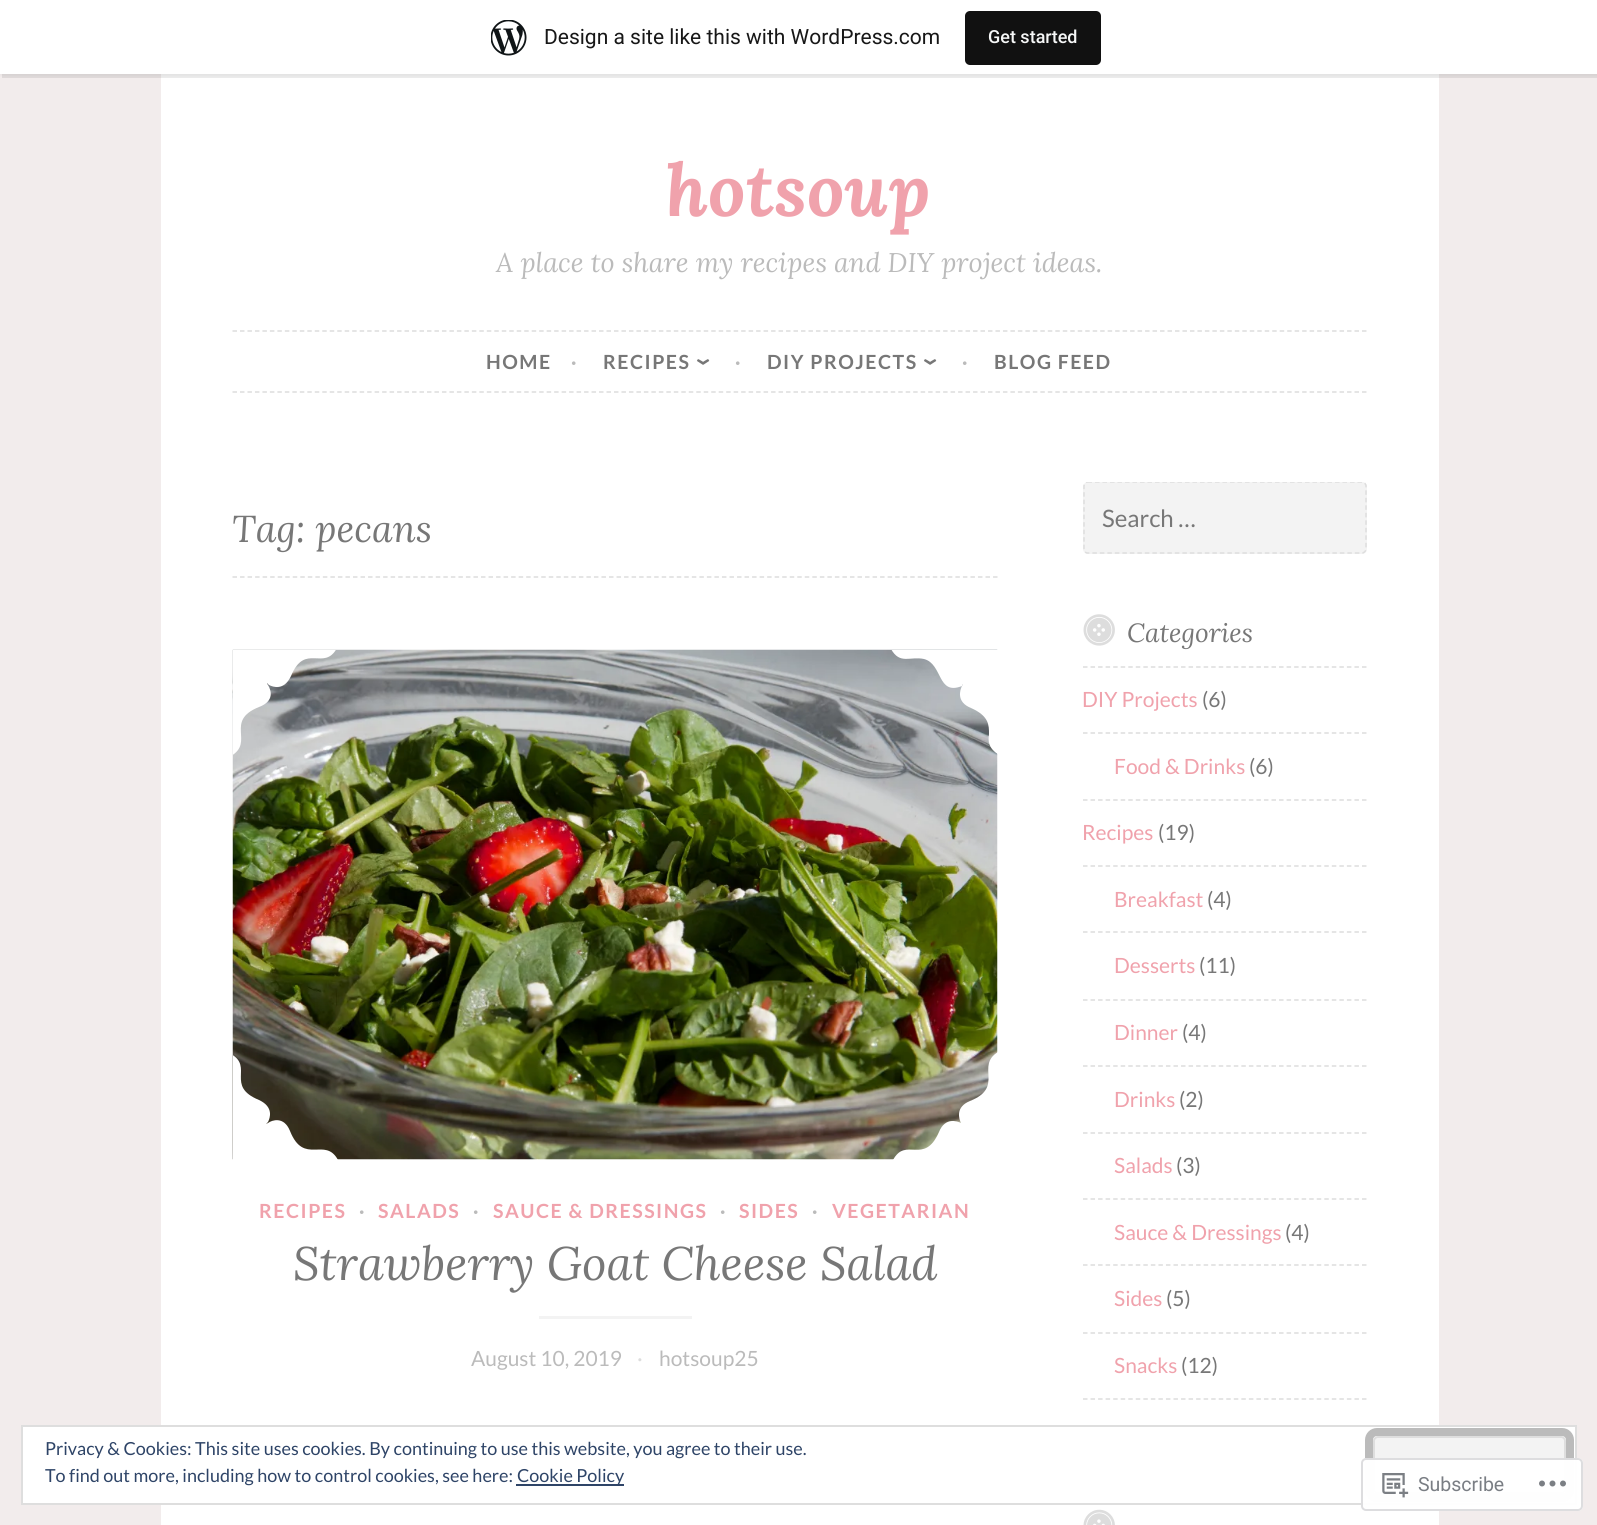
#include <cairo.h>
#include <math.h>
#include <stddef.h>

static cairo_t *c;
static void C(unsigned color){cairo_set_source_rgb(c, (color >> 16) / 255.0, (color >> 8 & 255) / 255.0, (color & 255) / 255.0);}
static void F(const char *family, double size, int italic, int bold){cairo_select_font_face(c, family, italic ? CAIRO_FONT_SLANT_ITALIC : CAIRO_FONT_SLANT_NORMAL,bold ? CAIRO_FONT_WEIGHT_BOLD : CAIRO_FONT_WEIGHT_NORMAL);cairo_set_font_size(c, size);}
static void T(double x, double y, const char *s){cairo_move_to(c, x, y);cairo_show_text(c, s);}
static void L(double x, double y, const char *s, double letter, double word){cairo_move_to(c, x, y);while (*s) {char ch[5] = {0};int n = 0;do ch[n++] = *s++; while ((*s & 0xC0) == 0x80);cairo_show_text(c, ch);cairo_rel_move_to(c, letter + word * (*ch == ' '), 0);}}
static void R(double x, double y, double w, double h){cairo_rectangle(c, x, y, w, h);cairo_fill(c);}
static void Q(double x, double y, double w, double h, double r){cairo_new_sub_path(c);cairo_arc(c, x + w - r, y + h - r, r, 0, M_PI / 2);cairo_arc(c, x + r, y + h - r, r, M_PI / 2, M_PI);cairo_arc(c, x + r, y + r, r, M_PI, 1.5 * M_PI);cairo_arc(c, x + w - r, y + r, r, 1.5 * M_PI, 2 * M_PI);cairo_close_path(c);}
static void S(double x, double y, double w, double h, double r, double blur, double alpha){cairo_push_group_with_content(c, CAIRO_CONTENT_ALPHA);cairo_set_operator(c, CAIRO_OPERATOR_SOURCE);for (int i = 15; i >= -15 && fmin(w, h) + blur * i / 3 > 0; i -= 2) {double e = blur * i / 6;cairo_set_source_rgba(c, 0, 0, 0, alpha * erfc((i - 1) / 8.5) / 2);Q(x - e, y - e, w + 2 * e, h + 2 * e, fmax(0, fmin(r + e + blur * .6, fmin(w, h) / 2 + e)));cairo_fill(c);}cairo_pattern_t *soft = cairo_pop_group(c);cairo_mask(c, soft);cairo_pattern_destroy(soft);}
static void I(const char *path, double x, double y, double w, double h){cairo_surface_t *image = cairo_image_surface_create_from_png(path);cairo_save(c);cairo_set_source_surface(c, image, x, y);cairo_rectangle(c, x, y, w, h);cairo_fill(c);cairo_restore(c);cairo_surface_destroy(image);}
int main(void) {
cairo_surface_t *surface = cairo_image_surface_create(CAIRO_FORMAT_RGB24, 1597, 1525);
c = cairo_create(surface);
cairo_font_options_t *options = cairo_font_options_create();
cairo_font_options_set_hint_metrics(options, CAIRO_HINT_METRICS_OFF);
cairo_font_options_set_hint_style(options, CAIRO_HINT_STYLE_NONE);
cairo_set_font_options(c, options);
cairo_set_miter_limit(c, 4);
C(0xf2ecec);
cairo_paint(c);
C(0xffffff);
R(161,74,1278,1451);
C(0x000000);
S(0,2,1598,73,0,1.5,.05);
cairo_set_source_rgba(c,0,0,0,0.08);
cairo_new_path(c);
cairo_move_to(c,2,74);
cairo_line_to(c,2,78);
cairo_line_to(c,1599,78);
cairo_line_to(c,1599,5);
cairo_line_to(c,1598,5);
cairo_line_to(c,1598,74);
cairo_close_path(c);
cairo_fill(c);
C(0xffffff);
R(0,0,1597,74);
I("1.png",491,20,36,36);
F("Roboto",21,0,0);
C(0x171717);
T(544,44,"Design a site like this with WordPress.com");
C(0x111111);
Q(965,11,136,54,5);
cairo_fill(c);
F("Roboto Medium",18,0,0);
C(0xf6f7f7);
T(988,43,"Get started");
F("Lora",73,1,1);
C(0xf0a2ac);
T(666,216,"hotsoup");
F("Lora",27,1,0);
C(0xbbbbbb);
T(496,272,"A place to share my recipes and DIY project ideas.");
cairo_new_path(c);
cairo_move_to(c,232.5,331);
cairo_line_to(c,1366.5,331);
C(0xdddddd);
cairo_set_line_width(c,1.5);
cairo_set_dash(c,(double[]){4.5,2.98},2,0);
cairo_stroke(c);
cairo_new_path(c);
cairo_move_to(c,232.5,392);
cairo_line_to(c,1366.5,392);
cairo_stroke(c);
F("Lato",19.5,0,1);
C(0x777777);
L(486,369,"HOME",1.5,0);
C(0xbbbbbb);
L(571,369,"·",1.5,0);
C(0x777777);
L(603,369,"RECIPES",1.5,0);
F("Lato",30,0,1);
cairo_save(c);
cairo_translate(c,695,357);
cairo_rotate(c,90 * M_PI / 180);
L(0,0,"›",1.5,0);
cairo_restore(c);
F("Lato",19.5,0,1);
C(0xbbbbbb);
L(735,369,"·",1.5,0);
C(0x777777);
L(767,369,"DIY PROJECTS",1.5,0);
F("Lato",30,0,1);
cairo_save(c);
cairo_translate(c,922,357);
cairo_rotate(c,90 * M_PI / 180);
L(0,0,"›",1.5,0);
cairo_restore(c);
F("Lato",19.5,0,1);
C(0xbbbbbb);
L(962,369,"·",1.5,0);
C(0x777777);
L(994,369,"BLOG FEED",1.5,0);
cairo_new_path(c);
cairo_move_to(c,232.5,577);
cairo_line_to(c,997.5,577);
C(0xdddddd);
cairo_set_dash(c,(double[]){4.5,3.03},2,0);
cairo_stroke(c);
F("Lora",37.5,1,0);
C(0x777777);
T(232,542,"Tag: pecans");
I("2.png",232,649,766,511);
cairo_save(c);
cairo_rectangle(c,233,650,765,510);
cairo_clip(c);
C(0xffffff);
cairo_new_path(c);
cairo_move_to(c,231,1054);
cairo_curve_to(c,254,1067,225,1086,259,1100);
cairo_curve_to(c,274,1107,270,1118,268,1122);
cairo_line_to(c,266,1124);
cairo_line_to(c,267,1123);
cairo_line_to(c,266,1124);
cairo_line_to(c,268,1123);
cairo_curve_to(c,272,1120,284,1116,290,1131);
cairo_curve_to(c,304,1166,325,1136,338,1160);
cairo_line_to(c,231,1160);
cairo_fill(c);
cairo_restore(c);
C(0xffffff);
cairo_new_path(c);
cairo_move_to(c,893,1160);
cairo_curve_to(c,906,1136,924,1166,939,1132);
cairo_curve_to(c,945,1117,957,1121,961,1123);
cairo_line_to(c,963,1125);
cairo_line_to(c,962,1124);
cairo_line_to(c,963,1125);
cairo_line_to(c,961,1123);
cairo_curve_to(c,959,1119,955,1107,970,1101);
cairo_curve_to(c,1005,1087,975,1066,998,1052);
cairo_line_to(c,998,1160);
cairo_fill(c);
cairo_save(c);
cairo_rectangle(c,233,650,111,111);
cairo_clip(c);
cairo_new_path(c);
cairo_move_to(c,337,648);
cairo_curve_to(c,324,672,305,642,291,676);
cairo_curve_to(c,284,691,273,687,269,685);
cairo_line_to(c,267,683);
cairo_line_to(c,267,684);
cairo_line_to(c,268,685);
cairo_curve_to(c,271,690,275,701,259,707);
cairo_curve_to(c,224,721,255,742,231,756);
cairo_line_to(c,231,648);
cairo_fill(c);
cairo_restore(c);
cairo_save(c);
cairo_rectangle(c,233,650,765,510);
cairo_clip(c);
cairo_set_fill_rule(c,CAIRO_FILL_RULE_EVEN_ODD);
cairo_new_path(c);
cairo_move_to(c,999,649);
cairo_line_to(c,891,649);
cairo_curve_to(c,900,665,910,656,924,659);
cairo_curve_to(c,943,664,937,696,962,686);
cairo_curve_to(c,960,690,956,702,971,708);
cairo_curve_to(c,989,716,989,725,989,734);
cairo_curve_to(c,988,741,988,748,999,755);
cairo_close_path(c);
cairo_move_to(c,962,686);
cairo_line_to(c,963,684);
cairo_line_to(c,963,685);
cairo_close_path(c);
cairo_fill(c);
cairo_restore(c);
F("Lato",19.5,0,1);
C(0xf0a2ac);
L(259,1218,"RECIPES",1.5,0);
C(0xbbbbbb);
L(359,1218,"·",1.5,0);
C(0xf0a2ac);
L(378,1218,"SALADS",1.5,0);
C(0xbbbbbb);
L(473,1218,"·",1.5,0);
C(0xf0a2ac);
L(493,1218,"SAUCE & DRESSINGS",1.5,0);
C(0xbbbbbb);
L(720,1218,"·",1.5,0);
C(0xf0a2ac);
L(739,1218,"SIDES",1.5,0);
C(0xbbbbbb);
L(812,1218,"·",1.5,0);
C(0xf0a2ac);
L(832,1218,"VEGETARIAN",1.5,0);
F("Lora",46.9,1,0);
C(0x777777);
T(293,1280,"Strawberry Goat Cheese Salad");
C(0xf3f3f3);
R(539,1316,153,3);
F("Lato",21,0,0);
C(0xbbbbbb);
T(471,1366,"August 10, 2019");
C(0xdddddd);
T(637,1366,"·");
C(0xbbbbbb);
T(659,1366,"hotsoup25");
C(0xf3f3f3);
Q(1083,482,284,72,5);
cairo_fill(c);
cairo_save(c);
cairo_rectangle(c,1083,482,284,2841);
cairo_clip(c);
cairo_new_path(c);
cairo_move_to(c,1087.5,482);
cairo_line_to(c,1362,482);
cairo_curve_to(c,1364,482,1366,484,1366,486);
cairo_line_to(c,1366,549);
cairo_curve_to(c,1366,551,1364,553,1362,553);
cairo_line_to(c,1087.5,553);
cairo_curve_to(c,1085.5,553,1084,551,1084,549);
cairo_line_to(c,1084,486);
cairo_curve_to(c,1084,484,1085.5,482,1087.5,482);
cairo_close_path(c);
C(0xdddddd);
cairo_set_dash(c,(double[]){4.5,3},2,0);
cairo_stroke(c);
cairo_restore(c);
F("Lato",24,0,0);
C(0x777777);
T(1102,527,"Search …");
I("3.png",1083,614,32,32);
F("Lora",26.25,1,0);
T(1127,642,"Categories");
cairo_new_path(c);
cairo_move_to(c,1083,667);
cairo_line_to(c,1366.5,667);
C(0xdddddd);
cairo_set_dash(c,(double[]){4.5,3.04},2,0);
cairo_stroke(c);
F("Lato",21,0,0);
C(0xf0a2ac);
T(1082,707,"DIY Projects");
C(0x777777);
T(1202,707,"(6)");
cairo_new_path(c);
cairo_move_to(c,1083,733);
cairo_line_to(c,1366.5,733);
C(0xdddddd);
cairo_stroke(c);
C(0xf0a2ac);
T(1114,774,"Food & Drinks");
C(0x777777);
T(1249,774,"(6)");
cairo_new_path(c);
cairo_move_to(c,1083,800);
cairo_line_to(c,1366.5,800);
C(0xdddddd);
cairo_stroke(c);
C(0xf0a2ac);
T(1082,840,"Recipes");
C(0x777777);
T(1158,840,"(19)");
cairo_new_path(c);
cairo_move_to(c,1083,866);
cairo_line_to(c,1366.5,866);
C(0xdddddd);
cairo_stroke(c);
C(0xf0a2ac);
T(1114,907,"Breakfast");
C(0x777777);
T(1207,907,"(4)");
cairo_new_path(c);
cairo_move_to(c,1083,932);
cairo_line_to(c,1366.5,932);
C(0xdddddd);
cairo_stroke(c);
C(0xf0a2ac);
T(1114,973,"Desserts");
C(0x777777);
T(1199,973,"(11)");
cairo_new_path(c);
cairo_move_to(c,1083,1000);
cairo_line_to(c,1366.5,1000);
C(0xdddddd);
cairo_stroke(c);
C(0xf0a2ac);
T(1114,1040,"Dinner");
C(0x777777);
T(1182,1040,"(4)");
cairo_new_path(c);
cairo_move_to(c,1083,1066);
cairo_line_to(c,1366.5,1066);
C(0xdddddd);
cairo_stroke(c);
C(0xf0a2ac);
T(1114,1107,"Drinks");
C(0x777777);
T(1179,1107,"(2)");
cairo_new_path(c);
cairo_move_to(c,1083,1133);
cairo_line_to(c,1366.5,1133);
C(0xdddddd);
cairo_stroke(c);
C(0xf0a2ac);
T(1114,1173,"Salads");
C(0x777777);
T(1176,1173,"(3)");
cairo_new_path(c);
cairo_move_to(c,1083,1199);
cairo_line_to(c,1366.5,1199);
C(0xdddddd);
cairo_stroke(c);
C(0xf0a2ac);
T(1114,1240,"Sauce & Dressings");
C(0x777777);
T(1285,1240,"(4)");
cairo_new_path(c);
cairo_move_to(c,1083,1265);
cairo_line_to(c,1366.5,1265);
C(0xdddddd);
cairo_stroke(c);
C(0xf0a2ac);
T(1114,1306,"Sides");
C(0x777777);
T(1166,1306,"(5)");
cairo_new_path(c);
cairo_move_to(c,1083,1333);
cairo_line_to(c,1366.5,1333);
C(0xdddddd);
cairo_stroke(c);
C(0xf0a2ac);
T(1114,1373,"Snacks");
C(0x777777);
T(1181,1373,"(12)");
cairo_new_path(c);
cairo_move_to(c,1083,1399);
cairo_line_to(c,1366.5,1399);
C(0xdddddd);
cairo_stroke(c);
I("4.png",1083,1509,32,16);
C(0xffffff);
cairo_rectangle(c,22,1426,1554,78);
cairo_fill_preserve(c);
C(0xdedede);
cairo_set_line_width(c,2);
cairo_set_dash(c,NULL,0,0);
cairo_stroke(c);
F("Lato",18,0,0);
C(0x2e4467);
T(45,1455,"Privacy & Cookies: This site uses cookies. By continuing to use this website, you agree to their use.");
C(0xf3f3f3);
Q(1374,1437,191,56,4);
cairo_fill_preserve(c);
C(0xdedede);
cairo_stroke(c);
Q(1369,1432,201,66,8);
C(0xbbbbbb);
cairo_set_line_width(c,8);
cairo_stroke(c);
C(0x2e4467);
T(45,1482,"To find out more, including how to control cookies, see here:");
R(516,1484,108,2);
T(517,1482,"Cookie Policy");
cairo_set_source_rgba(c,1,1,1,0.98);
Q(1361,1458,222,53,5);
cairo_fill(c);
Q(1362,1459,220,51,4);
cairo_set_source_rgba(c,0.863,0.863,0.871,0.98);
cairo_set_line_width(c,2);
cairo_stroke(c);
I("5.png",1382,1473,27,25);
F("Roboto",19.5,0,0);
C(0x7a7e84);
T(1418,1491,"Subscribe");
I("6.png",1539,1480,27,7);
cairo_surface_write_to_png(surface, "o.png");
cairo_font_options_destroy(options);
cairo_destroy(c);
cairo_surface_destroy(surface);
return 0;
}
